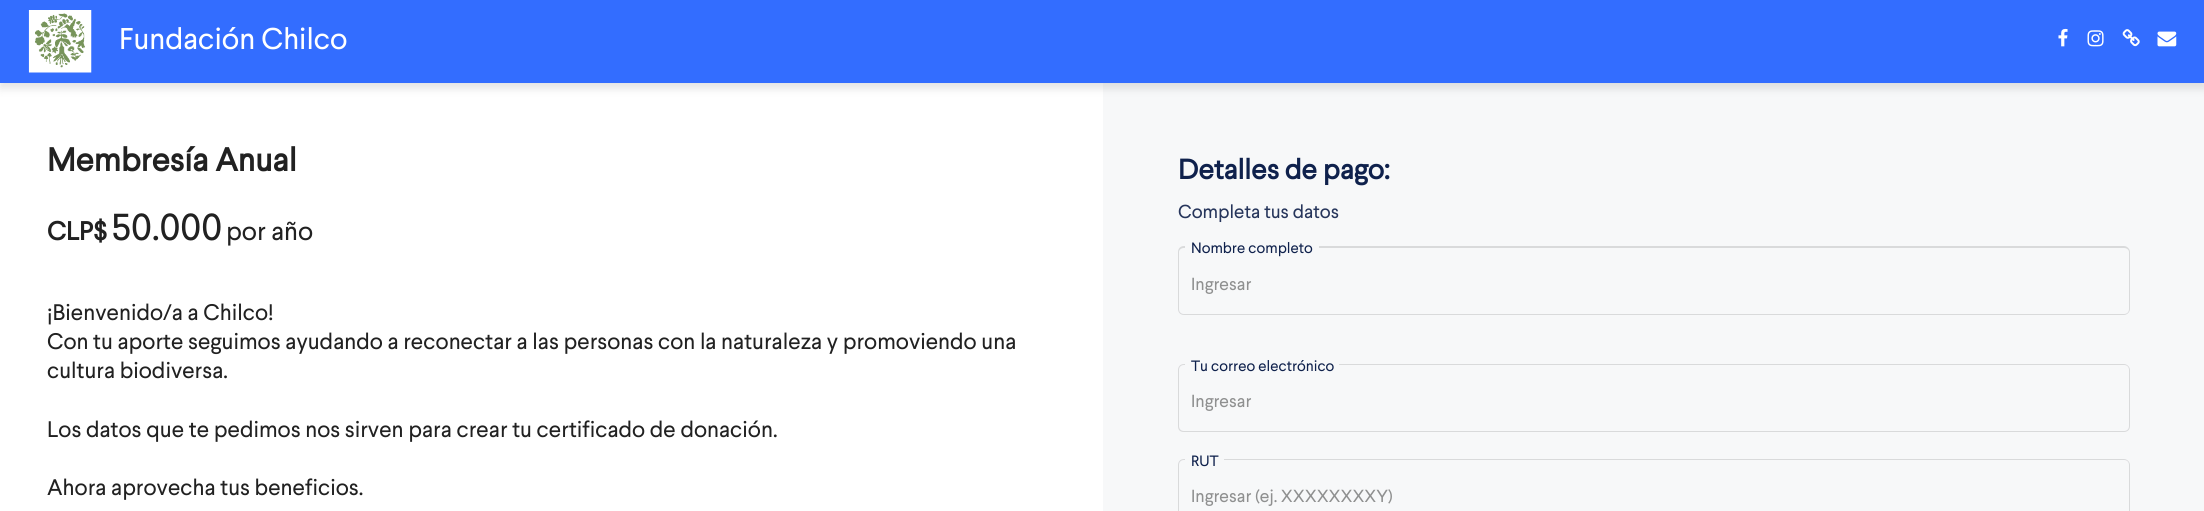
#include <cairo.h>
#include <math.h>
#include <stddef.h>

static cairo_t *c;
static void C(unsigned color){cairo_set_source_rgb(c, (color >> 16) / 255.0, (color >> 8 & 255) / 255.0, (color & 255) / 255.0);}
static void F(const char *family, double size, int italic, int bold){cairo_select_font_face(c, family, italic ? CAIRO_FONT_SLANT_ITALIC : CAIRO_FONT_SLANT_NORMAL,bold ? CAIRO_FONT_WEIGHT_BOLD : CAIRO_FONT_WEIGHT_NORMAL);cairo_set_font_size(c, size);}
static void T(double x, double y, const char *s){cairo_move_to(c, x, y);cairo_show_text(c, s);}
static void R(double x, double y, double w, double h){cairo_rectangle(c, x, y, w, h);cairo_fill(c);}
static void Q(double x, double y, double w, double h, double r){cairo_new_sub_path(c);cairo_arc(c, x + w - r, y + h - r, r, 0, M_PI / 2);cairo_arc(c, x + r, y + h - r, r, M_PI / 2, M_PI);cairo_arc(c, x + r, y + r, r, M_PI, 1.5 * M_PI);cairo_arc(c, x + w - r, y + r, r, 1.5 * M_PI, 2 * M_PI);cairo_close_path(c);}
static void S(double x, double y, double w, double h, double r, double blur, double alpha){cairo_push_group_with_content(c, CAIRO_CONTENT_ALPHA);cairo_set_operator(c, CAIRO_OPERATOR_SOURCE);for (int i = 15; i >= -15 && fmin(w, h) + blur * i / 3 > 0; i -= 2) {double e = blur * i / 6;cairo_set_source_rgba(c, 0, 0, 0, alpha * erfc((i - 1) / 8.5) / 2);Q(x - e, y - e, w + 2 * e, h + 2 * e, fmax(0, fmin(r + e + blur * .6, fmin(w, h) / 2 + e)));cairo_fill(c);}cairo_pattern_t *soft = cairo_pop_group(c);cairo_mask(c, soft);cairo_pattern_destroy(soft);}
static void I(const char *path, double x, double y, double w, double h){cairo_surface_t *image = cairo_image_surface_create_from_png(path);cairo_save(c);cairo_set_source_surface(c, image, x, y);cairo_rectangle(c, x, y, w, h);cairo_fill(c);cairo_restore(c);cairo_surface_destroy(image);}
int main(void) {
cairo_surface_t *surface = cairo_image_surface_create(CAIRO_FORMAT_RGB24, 2204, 511);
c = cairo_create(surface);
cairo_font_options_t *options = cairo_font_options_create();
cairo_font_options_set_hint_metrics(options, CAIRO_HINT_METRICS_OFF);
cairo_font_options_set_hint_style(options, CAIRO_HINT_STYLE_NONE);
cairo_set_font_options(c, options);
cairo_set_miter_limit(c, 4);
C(0xffffff);
cairo_paint(c);
C(0xf7f8f9);
R(1103,83,1101,428);
C(0x000000);
S(0,5,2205,83,0,5,.12);
C(0x336dff);
R(0,0,2204,83);
I("1.png",28,10,64,63);
F("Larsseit",30,0,0);
C(0xffffff);
T(119,49,"Fundación Chilco");
I("2.png",2058,28,10,19);
I("3.png",2087,30,17,17);
I("4.png",2122,29,18,18);
I("5.png",2157,31,20,16);
F("Larsseit",32.75,0,1);
C(0x212121);
T(47,171,"Membresía Anual");
F("Larsseit",26,0,1);
T(47,240,"CLP$");
F("Larsseit",37.5,0,0);
T(111,240,"50.000");
F("Larsseit",26,0,0);
T(226,240,"por año");
F("Larsseit",22.5,0,0);
T(47,320,"¡Bienvenido/a a Chilco!");
T(47,349,"Con tu aporte seguimos ayudando a reconectar a las personas con la naturaleza y promoviendo una");
T(47,378,"cultura biodiversa.");
T(47,437,"Los datos que te pedimos nos sirven para crear tu certificado de donación.");
T(47,495,"Ahora aprovecha tus beneficios.");
F("Larsseit",28,0,1);
C(0x0f214c);
T(1178,179,"Detalles de pago:");
F("Larsseit",18.75,0,0);
C(0x26355b);
T(1178,218,"Completa tus datos");
F("Larsseit",15,0,0);
C(0x0f214c);
T(1191,253,"Nombre completo");
F("Larsseit",17.5,0,0);
C(0x8f9090);
T(1191,290,"Ingresar");
C(0xd9dadb);
cairo_set_fill_rule(c,CAIRO_FILL_RULE_EVEN_ODD);
cairo_new_path(c);
cairo_move_to(c,1184,246);
cairo_line_to(c,1185,246);
cairo_line_to(c,1185,315);
cairo_line_to(c,1184,315);
cairo_curve_to(c,1180,315,1178,312,1178,309);
cairo_line_to(c,1178,252);
cairo_curve_to(c,1178,249,1180,246,1184,246);
cairo_close_path(c);
cairo_move_to(c,1184,248);
cairo_line_to(c,1185,248);
cairo_line_to(c,1185,314);
cairo_line_to(c,1184,314);
cairo_curve_to(c,1181,314,1179,312,1179,309);
cairo_line_to(c,1179,252);
cairo_curve_to(c,1179,250,1181,248,1184,248);
cairo_close_path(c);
cairo_fill(c);
R(1185,314,134,1);
cairo_new_path(c);
cairo_move_to(c,1319,246);
cairo_line_to(c,2124,246);
cairo_curve_to(c,2127,246,2130,249,2130,252);
cairo_line_to(c,2130,309);
cairo_curve_to(c,2130,312,2127,315,2124,315);
cairo_line_to(c,1319,315);
cairo_close_path(c);
cairo_move_to(c,1319,248);
cairo_line_to(c,2124,248);
cairo_curve_to(c,2127,248,2129,250,2129,252);
cairo_line_to(c,2129,309);
cairo_curve_to(c,2129,312,2127,314,2124,314);
cairo_line_to(c,1319,314);
cairo_close_path(c);
cairo_fill(c);
F("Larsseit",15,0,0);
C(0x0f214c);
T(1191,371,"Tu correo electrónico");
F("Larsseit",17.5,0,0);
C(0x8f9090);
T(1191,407,"Ingresar");
C(0xd9dadb);
cairo_new_path(c);
cairo_move_to(c,1184,364);
cairo_line_to(c,1185,364);
cairo_line_to(c,1185,432);
cairo_line_to(c,1184,432);
cairo_curve_to(c,1180,432,1178,430,1178,426);
cairo_line_to(c,1178,370);
cairo_curve_to(c,1178,367,1180,364,1184,364);
cairo_close_path(c);
cairo_move_to(c,1184,365);
cairo_line_to(c,1185,365);
cairo_line_to(c,1185,431);
cairo_line_to(c,1184,431);
cairo_curve_to(c,1181,431,1179,429,1179,426);
cairo_line_to(c,1179,370);
cairo_curve_to(c,1179,367,1181,365,1184,365);
cairo_close_path(c);
cairo_fill(c);
R(1185,431,154,1);
cairo_new_path(c);
cairo_move_to(c,1339,364);
cairo_line_to(c,2124,364);
cairo_curve_to(c,2127,364,2130,367,2130,370);
cairo_line_to(c,2130,426);
cairo_curve_to(c,2130,430,2127,432,2124,432);
cairo_line_to(c,1339,432);
cairo_close_path(c);
cairo_move_to(c,1339,365);
cairo_line_to(c,2124,365);
cairo_curve_to(c,2127,365,2129,367,2129,370);
cairo_line_to(c,2129,426);
cairo_curve_to(c,2129,429,2127,431,2124,431);
cairo_line_to(c,1339,431);
cairo_close_path(c);
cairo_fill(c);
F("Larsseit",15,0,0);
C(0x0f214c);
T(1191,466,"RUT");
C(0xd9dadb);
cairo_new_path(c);
cairo_move_to(c,1224,459);
cairo_line_to(c,2124,459);
cairo_curve_to(c,2127,459,2130,462,2130,465);
cairo_line_to(c,2130,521);
cairo_curve_to(c,2130,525,2127,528,2124,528);
cairo_line_to(c,1224,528);
cairo_close_path(c);
cairo_move_to(c,1224,460);
cairo_line_to(c,2124,460);
cairo_curve_to(c,2127,460,2129,462,2129,465);
cairo_line_to(c,2129,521);
cairo_curve_to(c,2129,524,2127,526,2124,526);
cairo_line_to(c,1224,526);
cairo_close_path(c);
cairo_fill(c);
F("Larsseit",17.5,0,0);
C(0x8f9090);
T(1191,502,"Ingresar (ej. XXXXXXXXY)");
C(0xd9dadb);
cairo_new_path(c);
cairo_move_to(c,1184,459);
cairo_line_to(c,1185,459);
cairo_line_to(c,1185,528);
cairo_line_to(c,1184,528);
cairo_curve_to(c,1180,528,1178,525,1178,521);
cairo_line_to(c,1178,465);
cairo_curve_to(c,1178,462,1180,459,1184,459);
cairo_close_path(c);
cairo_move_to(c,1184,460);
cairo_line_to(c,1185,460);
cairo_line_to(c,1185,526);
cairo_line_to(c,1184,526);
cairo_curve_to(c,1181,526,1179,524,1179,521);
cairo_line_to(c,1179,465);
cairo_curve_to(c,1179,462,1181,460,1184,460);
cairo_close_path(c);
cairo_fill(c);
cairo_surface_write_to_png(surface, "o.png");
cairo_font_options_destroy(options);
cairo_destroy(c);
cairo_surface_destroy(surface);
return 0;
}
